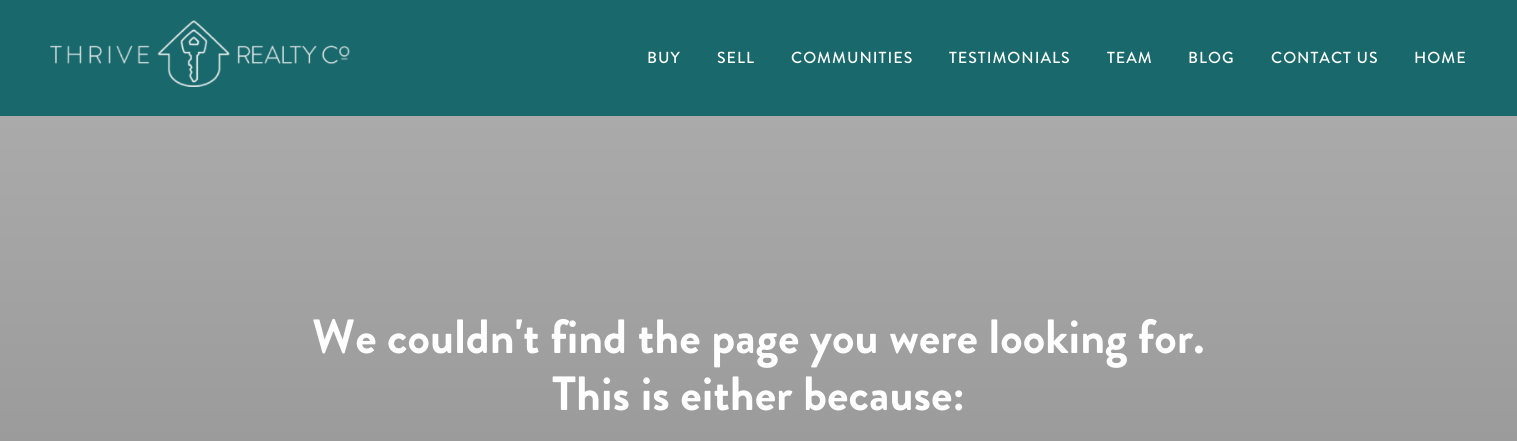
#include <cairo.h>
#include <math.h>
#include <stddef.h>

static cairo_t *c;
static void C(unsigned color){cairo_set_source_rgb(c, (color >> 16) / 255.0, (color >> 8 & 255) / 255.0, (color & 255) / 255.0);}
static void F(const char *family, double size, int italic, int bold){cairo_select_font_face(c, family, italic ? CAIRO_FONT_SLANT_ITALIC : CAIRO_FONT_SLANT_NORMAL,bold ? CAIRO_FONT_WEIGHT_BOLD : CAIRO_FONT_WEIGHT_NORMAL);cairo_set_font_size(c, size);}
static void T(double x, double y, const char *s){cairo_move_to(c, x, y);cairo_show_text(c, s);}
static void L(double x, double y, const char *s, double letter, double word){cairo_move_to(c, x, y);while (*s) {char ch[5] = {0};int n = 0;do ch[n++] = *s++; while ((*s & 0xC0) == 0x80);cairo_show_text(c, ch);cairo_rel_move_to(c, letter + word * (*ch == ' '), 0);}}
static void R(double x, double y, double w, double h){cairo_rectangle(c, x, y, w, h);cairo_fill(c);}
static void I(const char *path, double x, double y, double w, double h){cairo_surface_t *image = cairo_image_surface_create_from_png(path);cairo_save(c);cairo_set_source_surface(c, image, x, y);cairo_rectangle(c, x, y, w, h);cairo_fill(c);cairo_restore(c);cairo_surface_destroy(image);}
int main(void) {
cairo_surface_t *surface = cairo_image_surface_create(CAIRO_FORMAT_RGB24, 1517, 441);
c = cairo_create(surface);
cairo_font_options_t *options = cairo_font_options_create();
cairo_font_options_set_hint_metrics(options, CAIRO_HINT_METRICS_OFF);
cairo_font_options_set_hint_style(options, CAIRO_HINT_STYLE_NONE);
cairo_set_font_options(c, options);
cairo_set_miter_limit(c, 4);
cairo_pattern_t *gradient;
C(0xffffff);
cairo_paint(c);
C(0x19696c);
R(0,0,1517,116);
I("1.png",50,20,300,67);
F("Brandon Grotesque Medium",16,0,0);
C(0xffffff);
L(647,63,"BUY",1,0);
L(717,63,"SELL",1,0);
L(791,63,"COMMUNITIES",1,0);
L(949,63,"TESTIMONIALS",1,0);
L(1107,63,"TEAM",1,0);
L(1188,63,"BLOG",1,0);
L(1271,63,"CONTACT US",1,0);
L(1414,63,"HOME",1,0);
gradient = cairo_pattern_create_linear(759,116,759,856);
cairo_pattern_add_color_stop_rgba(gradient,0,0.667,0.667,0.667,1);
cairo_pattern_add_color_stop_rgba(gradient,1,0.533,0.533,0.533,1);
cairo_set_source(c,gradient);
cairo_pattern_destroy(gradient);
R(0,116,1517,325);
F("Brandon Grotesque",48,0,1);
C(0xffffff);
T(312,353,"We couldn't find the page you were looking for.");
T(552,410,"This is either because:");
cairo_surface_write_to_png(surface, "o.png");
cairo_font_options_destroy(options);
cairo_destroy(c);
cairo_surface_destroy(surface);
return 0;
}
